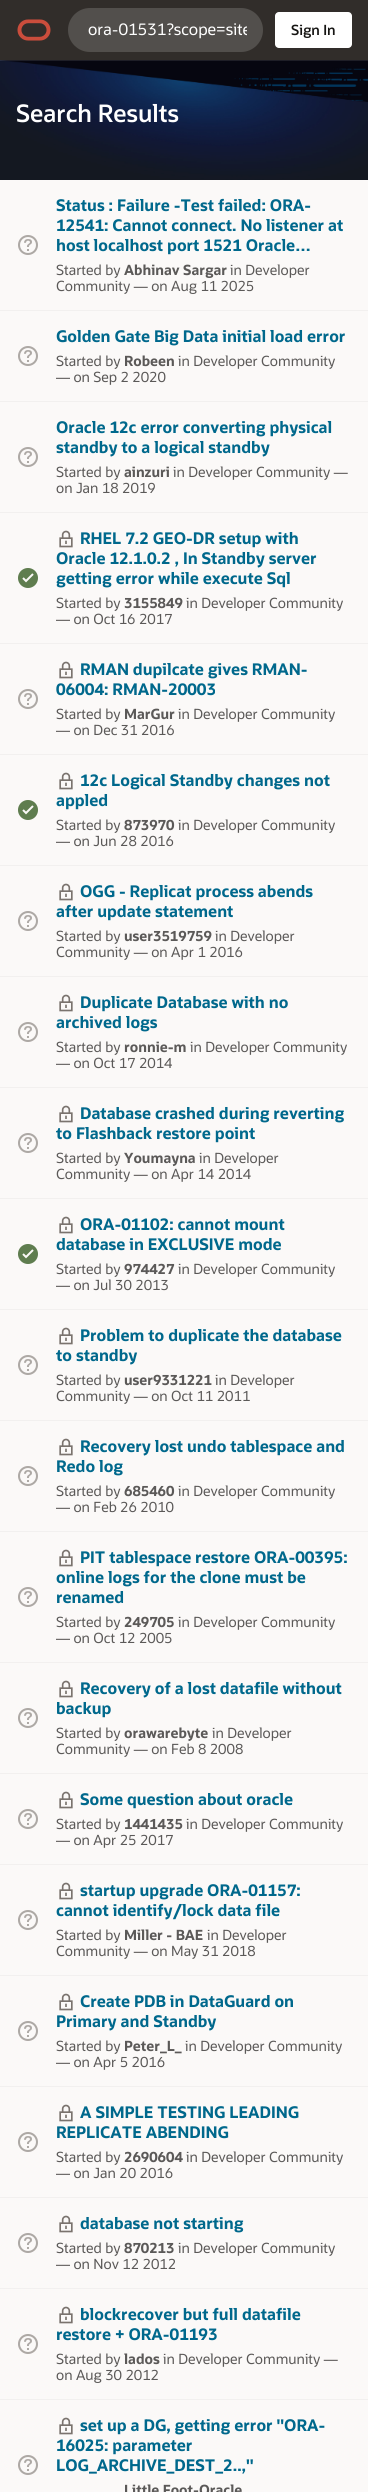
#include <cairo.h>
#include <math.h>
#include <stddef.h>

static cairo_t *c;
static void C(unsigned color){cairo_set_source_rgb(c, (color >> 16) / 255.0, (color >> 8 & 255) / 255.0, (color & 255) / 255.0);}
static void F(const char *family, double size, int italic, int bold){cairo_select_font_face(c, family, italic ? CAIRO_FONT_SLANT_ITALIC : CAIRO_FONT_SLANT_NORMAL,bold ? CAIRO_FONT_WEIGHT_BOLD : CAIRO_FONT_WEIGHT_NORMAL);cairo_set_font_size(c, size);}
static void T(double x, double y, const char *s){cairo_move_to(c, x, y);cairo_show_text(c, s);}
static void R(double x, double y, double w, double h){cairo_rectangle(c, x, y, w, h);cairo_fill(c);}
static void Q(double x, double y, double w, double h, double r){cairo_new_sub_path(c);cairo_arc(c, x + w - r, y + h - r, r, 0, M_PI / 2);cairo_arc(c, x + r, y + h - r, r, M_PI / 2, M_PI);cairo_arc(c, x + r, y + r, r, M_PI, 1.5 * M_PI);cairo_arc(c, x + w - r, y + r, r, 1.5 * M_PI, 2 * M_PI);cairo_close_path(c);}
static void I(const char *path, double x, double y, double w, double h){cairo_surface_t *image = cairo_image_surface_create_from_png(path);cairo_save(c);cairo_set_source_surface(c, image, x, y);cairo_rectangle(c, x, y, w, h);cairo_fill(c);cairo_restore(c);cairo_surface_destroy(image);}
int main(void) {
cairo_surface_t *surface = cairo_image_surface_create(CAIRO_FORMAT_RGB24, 368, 2492);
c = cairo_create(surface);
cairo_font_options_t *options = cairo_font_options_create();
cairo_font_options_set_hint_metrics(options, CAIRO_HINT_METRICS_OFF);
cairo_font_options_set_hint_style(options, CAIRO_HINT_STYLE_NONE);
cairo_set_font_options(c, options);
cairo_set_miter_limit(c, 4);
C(0xffffff);
cairo_paint(c);
I("2.png",0,60,368,120);
cairo_rectangle(c,-.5,-.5,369,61);
cairo_set_source_rgba(c,1,1,1,0.1);
cairo_set_line_width(c,1);
cairo_stroke(c);
C(0x312d2a);
R(0,0,368,60);
I("1.png",17,19,34,22);
C(0x524f4c);
Q(68,8,195,44,22);
cairo_fill(c);
cairo_save(c);
cairo_rectangle(c,88,20,159,20);
cairo_clip(c);
F("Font",16,0,0);
C(0xffffff);
T(88,35,"ora-01531?scope=site");
cairo_restore(c);
C(0xffffff);
Q(275,12,77,36,4);
cairo_fill(c);
F("Font SemiBold",14,0,0);
C(0x161513);
T(291,35,"Sign In");
F("Font SemiBold",24,0,0);
C(0xffffff);
T(16,122,"Search Results");
C(0xfbf9f8);
R(0,180,368,2312);
I("3.png",18,235,20,20);
F("Font",16,0,1);
C(0x00688c);
T(56,211,"Status : Failure -Test failed: ORA-");
T(56,231,"12541: Cannot connect. No listener at");
T(56,251,"host localhost port 1521 Oracle…");
F("Font",14,0,0);
C(0x5b5958);
T(56,275,"Started by");
F("Font",14,0,1);
T(124,275,"Abhinav Sargar");
F("Font",14,0,0);
T(230,275,"in Developer");
T(56,291,"Community — on Aug 11 2025");
C(0xf2f0ef);
R(0,310,368,1);
I("3.png",18,346,20,20);
F("Font",16,0,1);
C(0x00688c);
T(56,342,"Golden Gate Big Data initial load error");
F("Font",14,0,0);
C(0x5b5958);
T(56,366,"Started by");
F("Font",14,0,1);
T(124,366,"Robeen");
F("Font",14,0,0);
T(178,366,"in Developer Community");
T(56,382,"— on Sep 2 2020");
C(0xf2f0ef);
R(0,401,368,1);
I("3.png",18,447,20,20);
F("Font",16,0,1);
C(0x00688c);
T(56,433,"Oracle 12c error converting physical");
T(56,453,"standby to a logical standby");
F("Font",14,0,0);
C(0x5b5958);
T(56,477,"Started by");
F("Font",14,0,1);
T(124,477,"ainzuri");
F("Font",14,0,0);
T(173,477,"in Developer Community —");
T(56,493,"on Jan 18 2019");
C(0xf2f0ef);
R(0,512,368,1);
I("4.png",18,568,20,20);
I("5.png",59,530,14,18);
F("Font",16,0,1);
C(0x00688c);
T(80,544,"RHEL 7.2 GEO-DR setup with");
T(56,564,"Oracle 12.1.0.2 , In Standby server");
T(56,584,"getting error while execute Sql");
F("Font",14,0,0);
C(0x5b5958);
T(56,608,"Started by");
F("Font",14,0,1);
T(124,608,"3155849");
F("Font",14,0,0);
T(186,608,"in Developer Community");
T(56,624,"— on Oct 16 2017");
C(0xf2f0ef);
R(0,643,368,1);
I("3.png",18,689,20,20);
I("5.png",59,661,14,18);
F("Font",16,0,1);
C(0x00688c);
T(80,675,"RMAN dupilcate gives RMAN-");
T(56,695,"06004: RMAN-20003");
F("Font",14,0,0);
C(0x5b5958);
T(56,719,"Started by");
F("Font",14,0,1);
T(124,719,"MarGur");
F("Font",14,0,0);
T(178,719,"in Developer Community");
T(56,735,"— on Dec 31 2016");
C(0xf2f0ef);
R(0,754,368,1);
I("4.png",18,800,20,20);
I("5.png",59,772,14,18);
F("Font",16,0,1);
C(0x00688c);
T(80,786,"12c Logical Standby changes not");
T(56,806,"appled");
F("Font",14,0,0);
C(0x5b5958);
T(56,830,"Started by");
F("Font",14,0,1);
T(124,830,"873970");
F("Font",14,0,0);
T(178,830,"in Developer Community");
T(56,846,"— on Jun 28 2016");
C(0xf2f0ef);
R(0,865,368,1);
I("3.png",18,911,20,20);
I("5.png",59,883,14,18);
F("Font",16,0,1);
C(0x00688c);
T(80,897,"OGG - Replicat process abends");
T(56,917,"after update statement");
F("Font",14,0,0);
C(0x5b5958);
T(56,941,"Started by");
F("Font",14,0,1);
T(124,941,"user3519759");
F("Font",14,0,0);
T(215,941,"in Developer");
T(56,957,"Community — on Apr 1 2016");
C(0xf2f0ef);
R(0,976,368,1);
I("3.png",18,1022,20,20);
I("5.png",59,994,14,18);
F("Font",16,0,1);
C(0x00688c);
T(80,1008,"Duplicate Database with no");
T(56,1028,"archived logs");
F("Font",14,0,0);
C(0x5b5958);
T(56,1052,"Started by");
F("Font",14,0,1);
T(124,1052,"ronnie-m");
F("Font",14,0,0);
T(190,1052,"in Developer Community");
T(56,1068,"— on Oct 17 2014");
C(0xf2f0ef);
R(0,1087,368,1);
I("3.png",18,1133,20,20);
I("5.png",59,1105,14,18);
F("Font",16,0,1);
C(0x00688c);
T(80,1119,"Database crashed during reverting");
T(56,1139,"to Flashback restore point");
F("Font",14,0,0);
C(0x5b5958);
T(56,1163,"Started by");
F("Font",14,0,1);
T(124,1163,"Youmayna");
F("Font",14,0,0);
T(199,1163,"in Developer");
T(56,1179,"Community — on Apr 14 2014");
C(0xf2f0ef);
R(0,1198,368,1);
I("4.png",18,1244,20,20);
I("5.png",59,1216,14,18);
F("Font",16,0,1);
C(0x00688c);
T(80,1230,"ORA-01102: cannot mount");
T(56,1250,"database in EXCLUSIVE mode");
F("Font",14,0,0);
C(0x5b5958);
T(56,1274,"Started by");
F("Font",14,0,1);
T(124,1274,"974427");
F("Font",14,0,0);
T(178,1274,"in Developer Community");
T(56,1290,"— on Jul 30 2013");
C(0xf2f0ef);
R(0,1309,368,1);
I("3.png",18,1355,20,20);
I("5.png",59,1327,14,18);
F("Font",16,0,1);
C(0x00688c);
T(80,1341,"Problem to duplicate the database");
T(56,1361,"to standby");
F("Font",14,0,0);
C(0x5b5958);
T(56,1385,"Started by");
F("Font",14,0,1);
T(124,1385,"user9331221");
F("Font",14,0,0);
T(215,1385,"in Developer");
T(56,1401,"Community — on Oct 11 2011");
C(0xf2f0ef);
R(0,1420,368,1);
I("3.png",18,1466,20,20);
I("5.png",59,1438,14,18);
F("Font",16,0,1);
C(0x00688c);
T(80,1452,"Recovery lost undo tablespace and");
T(56,1472,"Redo log");
F("Font",14,0,0);
C(0x5b5958);
T(56,1496,"Started by");
F("Font",14,0,1);
T(124,1496,"685460");
F("Font",14,0,0);
T(178,1496,"in Developer Community");
T(56,1512,"— on Feb 26 2010");
C(0xf2f0ef);
R(0,1531,368,1);
I("3.png",18,1587,20,20);
I("5.png",59,1549,14,18);
F("Font",16,0,1);
C(0x00688c);
T(80,1563,"PIT tablespace restore ORA-00395:");
T(56,1583,"online logs for the clone must be");
T(56,1603,"renamed");
F("Font",14,0,0);
C(0x5b5958);
T(56,1627,"Started by");
F("Font",14,0,1);
T(124,1627,"249705");
F("Font",14,0,0);
T(178,1627,"in Developer Community");
T(56,1643,"— on Oct 12 2005");
C(0xf2f0ef);
R(0,1662,368,1);
I("3.png",18,1708,20,20);
I("5.png",59,1680,14,18);
F("Font",16,0,1);
C(0x00688c);
T(80,1694,"Recovery of a lost datafile without");
T(56,1714,"backup");
F("Font",14,0,0);
C(0x5b5958);
T(56,1738,"Started by");
F("Font",14,0,1);
T(124,1738,"orawarebyte");
F("Font",14,0,0);
T(212,1738,"in Developer");
T(56,1754,"Community — on Feb 8 2008");
C(0xf2f0ef);
R(0,1773,368,1);
I("3.png",18,1809,20,20);
I("5.png",59,1791,14,18);
F("Font",16,0,1);
C(0x00688c);
T(80,1805,"Some question about oracle");
F("Font",14,0,0);
C(0x5b5958);
T(56,1829,"Started by");
F("Font",14,0,1);
T(124,1829,"1441435");
F("Font",14,0,0);
T(186,1829,"in Developer Community");
T(56,1845,"— on Apr 25 2017");
C(0xf2f0ef);
R(0,1864,368,1);
I("3.png",18,1910,20,20);
I("5.png",59,1882,14,18);
F("Font",16,0,1);
C(0x00688c);
T(80,1896,"startup upgrade ORA-01157:");
T(56,1916,"cannot identify/lock data file");
F("Font",14,0,0);
C(0x5b5958);
T(56,1940,"Started by");
F("Font",14,0,1);
T(124,1940,"Miller - BAE");
F("Font",14,0,0);
T(207,1940,"in Developer");
T(56,1956,"Community — on May 31 2018");
C(0xf2f0ef);
R(0,1975,368,1);
I("3.png",18,2021,20,20);
I("5.png",59,1993,14,18);
F("Font",16,0,1);
C(0x00688c);
T(80,2007,"Create PDB in DataGuard on");
T(56,2027,"Primary and Standby");
F("Font",14,0,0);
C(0x5b5958);
T(56,2051,"Started by");
F("Font",14,0,1);
T(124,2051,"Peter_L_");
F("Font",14,0,0);
T(185,2051,"in Developer Community");
T(56,2067,"— on Apr 5 2016");
C(0xf2f0ef);
R(0,2086,368,1);
I("3.png",18,2132,20,20);
I("5.png",59,2104,14,18);
F("Font",16,0,1);
C(0x00688c);
T(80,2118,"A SIMPLE TESTING LEADING");
T(56,2138,"REPLICATE ABENDING");
F("Font",14,0,0);
C(0x5b5958);
T(56,2162,"Started by");
F("Font",14,0,1);
T(124,2162,"2690604");
F("Font",14,0,0);
T(186,2162,"in Developer Community");
T(56,2178,"— on Jan 20 2016");
C(0xf2f0ef);
R(0,2197,368,1);
I("3.png",18,2233,20,20);
I("5.png",59,2215,14,18);
F("Font",16,0,1);
C(0x00688c);
T(80,2229,"database not starting");
F("Font",14,0,0);
C(0x5b5958);
T(56,2253,"Started by");
F("Font",14,0,1);
T(124,2253,"870213");
F("Font",14,0,0);
T(178,2253,"in Developer Community");
T(56,2269,"— on Nov 12 2012");
C(0xf2f0ef);
R(0,2288,368,1);
I("3.png",18,2334,20,20);
I("5.png",59,2306,14,18);
F("Font",16,0,1);
C(0x00688c);
T(80,2320,"blockrecover but full datafile");
T(56,2340,"restore + ORA-01193");
F("Font",14,0,0);
C(0x5b5958);
T(56,2364,"Started by");
F("Font",14,0,1);
T(124,2364,"lados");
F("Font",14,0,0);
T(163,2364,"in Developer Community —");
T(56,2380,"on Aug 30 2012");
C(0xf2f0ef);
R(0,2399,368,1);
I("3.png",18,2455,20,20);
I("5.png",59,2417,14,18);
F("Font",16,0,1);
C(0x00688c);
T(80,2431,"set up a DG, getting error \"ORA-");
T(56,2451,"16025: parameter");
T(56,2471,"LOG_ARCHIVE_DEST_2..,\"");
F("Font",14,0,1);
C(0x5b5958);
T(124,2495,"Little Foot-Oracle");
cairo_surface_write_to_png(surface, "o.png");
cairo_font_options_destroy(options);
cairo_destroy(c);
cairo_surface_destroy(surface);
return 0;
}
